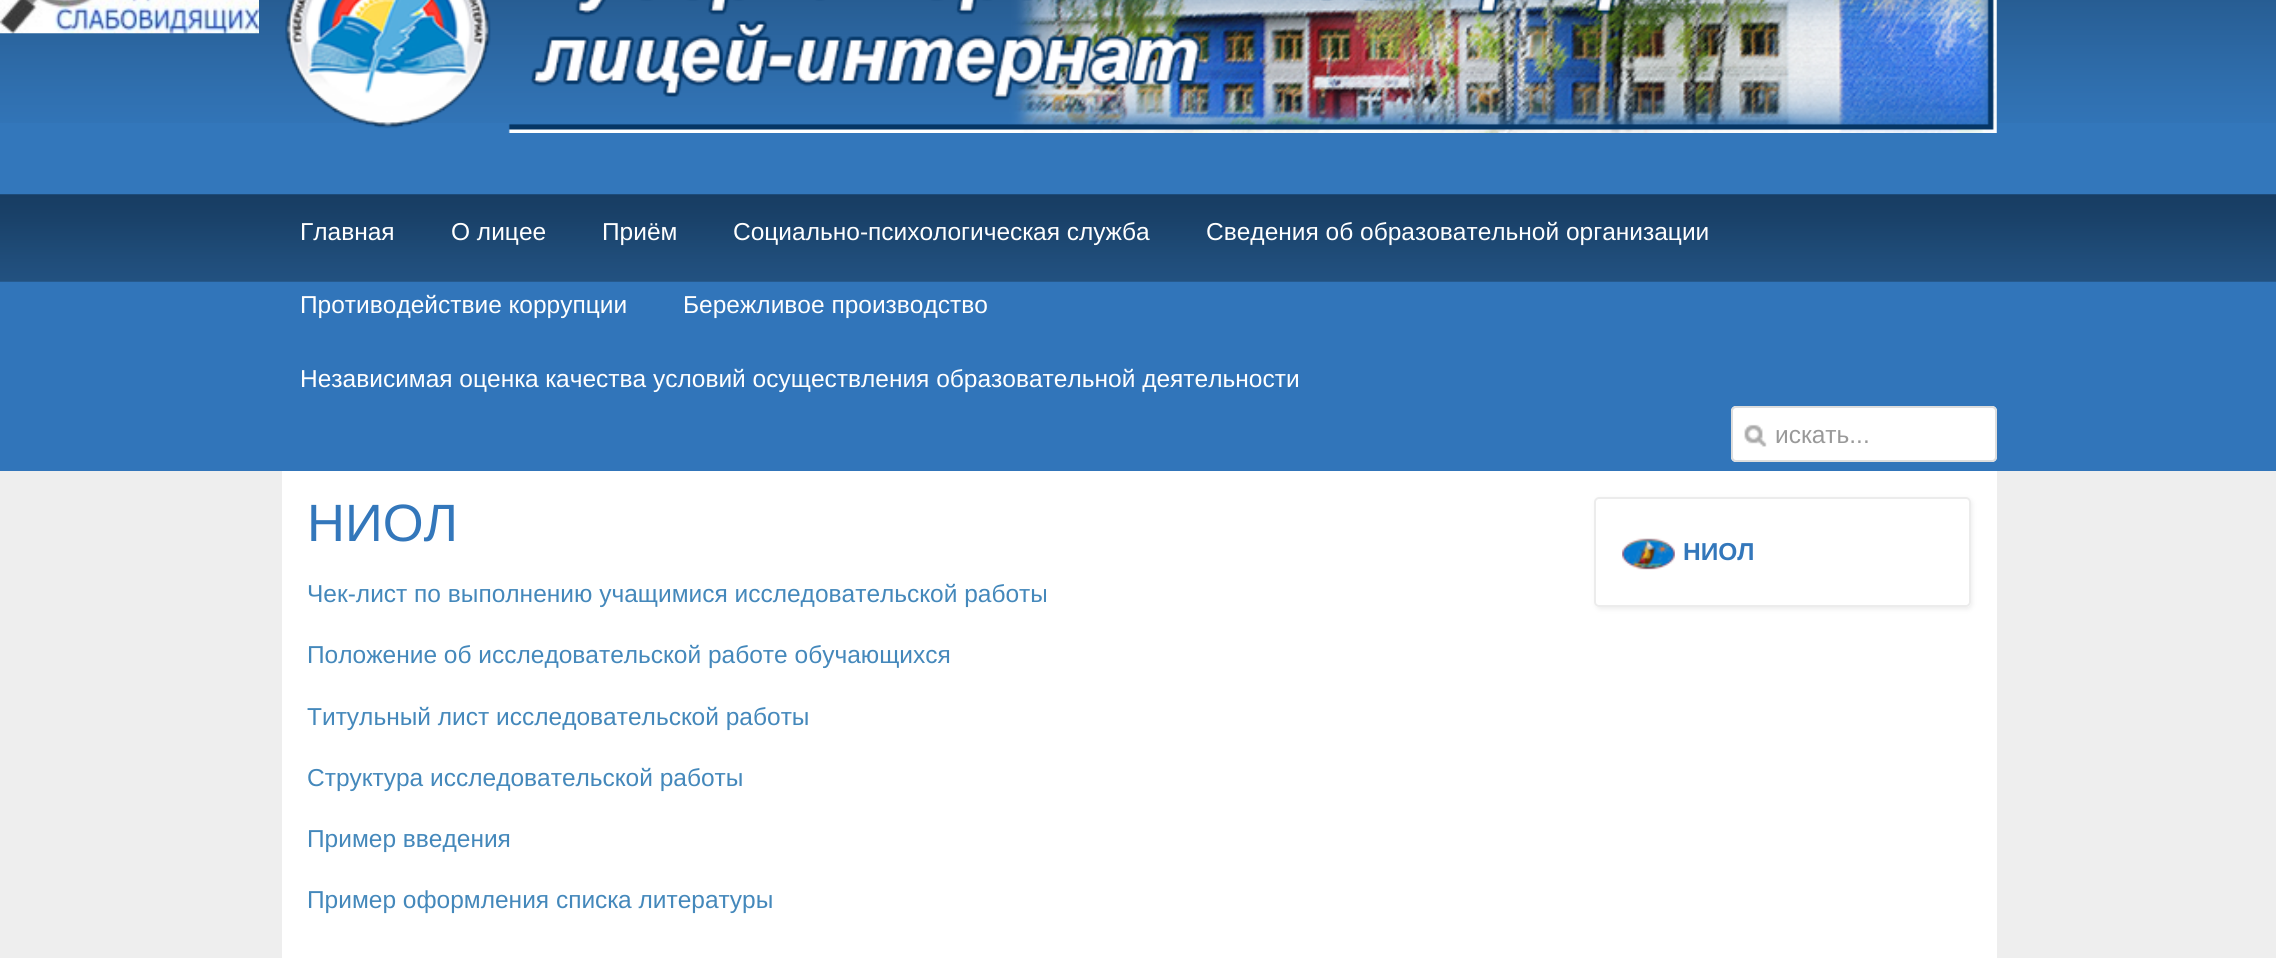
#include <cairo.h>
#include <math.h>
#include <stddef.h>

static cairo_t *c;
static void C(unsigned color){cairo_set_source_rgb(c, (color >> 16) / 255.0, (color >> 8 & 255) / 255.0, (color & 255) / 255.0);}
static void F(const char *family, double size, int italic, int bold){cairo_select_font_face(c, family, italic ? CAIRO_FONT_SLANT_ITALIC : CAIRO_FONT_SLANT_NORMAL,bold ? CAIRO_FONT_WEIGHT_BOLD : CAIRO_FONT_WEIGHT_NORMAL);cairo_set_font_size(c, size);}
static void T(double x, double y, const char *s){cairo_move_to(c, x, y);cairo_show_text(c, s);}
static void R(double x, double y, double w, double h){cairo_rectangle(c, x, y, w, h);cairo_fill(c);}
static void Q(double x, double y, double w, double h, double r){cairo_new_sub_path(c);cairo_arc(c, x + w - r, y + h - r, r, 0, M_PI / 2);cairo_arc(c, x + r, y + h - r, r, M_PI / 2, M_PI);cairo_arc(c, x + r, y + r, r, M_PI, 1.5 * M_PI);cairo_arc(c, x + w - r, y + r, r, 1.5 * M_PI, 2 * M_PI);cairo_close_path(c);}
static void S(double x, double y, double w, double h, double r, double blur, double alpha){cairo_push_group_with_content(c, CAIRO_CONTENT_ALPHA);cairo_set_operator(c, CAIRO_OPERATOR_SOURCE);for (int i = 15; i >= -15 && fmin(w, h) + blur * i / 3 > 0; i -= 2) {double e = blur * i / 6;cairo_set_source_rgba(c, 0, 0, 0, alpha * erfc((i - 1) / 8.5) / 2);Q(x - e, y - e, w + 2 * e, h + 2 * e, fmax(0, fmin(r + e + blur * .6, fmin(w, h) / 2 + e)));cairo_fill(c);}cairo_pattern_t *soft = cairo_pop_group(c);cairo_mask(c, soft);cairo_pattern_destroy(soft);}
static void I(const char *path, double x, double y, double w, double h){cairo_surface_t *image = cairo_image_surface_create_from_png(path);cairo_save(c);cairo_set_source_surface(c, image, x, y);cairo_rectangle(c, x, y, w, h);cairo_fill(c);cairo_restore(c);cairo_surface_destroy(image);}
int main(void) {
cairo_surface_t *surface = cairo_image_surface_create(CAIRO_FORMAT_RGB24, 2276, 958);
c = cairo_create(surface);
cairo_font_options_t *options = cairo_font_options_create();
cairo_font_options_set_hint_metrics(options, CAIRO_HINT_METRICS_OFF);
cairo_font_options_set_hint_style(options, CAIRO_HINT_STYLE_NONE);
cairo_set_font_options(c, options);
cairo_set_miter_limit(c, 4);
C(0xeeeeee);
cairo_paint(c);
C(0x3377bb);
R(0,123,2276,71);
I("1.png",0,0,2276,123);
I("2.png",285,0,1712,133);
I("3.png",0,0,259,34);
C(0x3175ba);
R(0,194,2276,277);
I("4.png",0,194,2276,88);
F("Liberation Sans",24.5,0,0);
C(0xffffff);
T(300,240,"Главная");
T(451,240,"О лицее");
T(602,240,"Приём");
T(733,240,"Социально-психологическая служба");
T(1206,240,"Сведения об образовательной организации");
T(300,313,"Противодействие коррупции");
T(683,313,"Бережливое производство");
T(300,387,"Независимая оценка качества условий осуществления образовательной деятельности");
Q(1731,406,266,56,5);
cairo_fill(c);
I("5.png",1744,424,23,23);
Q(1732,407,264,54,4);
C(0xdddddd);
cairo_stroke(c);
C(0x999999);
T(1775,443,"искать...");
C(0xffffff);
R(282,471,1715,487);
F("Liberation Sans",52.5,0,0);
C(0x3377bb);
T(307,541,"НИОЛ");
F("Liberation Sans",24.5,0,0);
C(0x4488bb);
T(307,602,"Чек-лист по выполнению учащимися исследовательской работы");
T(307,663,"Положение об исследовательской работе обучающихся");
T(307,725,"Титульный лист исследовательской работы");
T(307,786,"Структура исследовательской работы");
T(307,847,"Пример введения");
T(307,908,"Пример оформления списка литературы");
cairo_save(c);
cairo_set_fill_rule(c,CAIRO_FILL_RULE_EVEN_ODD);
cairo_new_path(c);
cairo_move_to(c,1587,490);
cairo_line_to(c,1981,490);
cairo_line_to(c,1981,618);
cairo_line_to(c,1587,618);
cairo_close_path(c);
cairo_move_to(c,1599,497);
cairo_line_to(c,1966,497);
cairo_curve_to(c,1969,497,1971,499,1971,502);
cairo_line_to(c,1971,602);
cairo_curve_to(c,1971,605,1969,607,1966,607);
cairo_line_to(c,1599,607);
cairo_curve_to(c,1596,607,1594,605,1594,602);
cairo_line_to(c,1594,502);
cairo_curve_to(c,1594,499,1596,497,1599,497);
cairo_close_path(c);
cairo_clip(c);
C(0xececec);
S(1596,499,376,110,5,2.5,1);
cairo_restore(c);
Q(1595,498,375,108,4);
C(0xececec);
cairo_stroke(c);
I("6.png",1622,538,53,32);
F("Liberation Sans",24.5,0,1);
C(0x3377bb);
T(1683,560,"НИОЛ");
cairo_surface_write_to_png(surface, "o.png");
cairo_font_options_destroy(options);
cairo_destroy(c);
cairo_surface_destroy(surface);
return 0;
}
